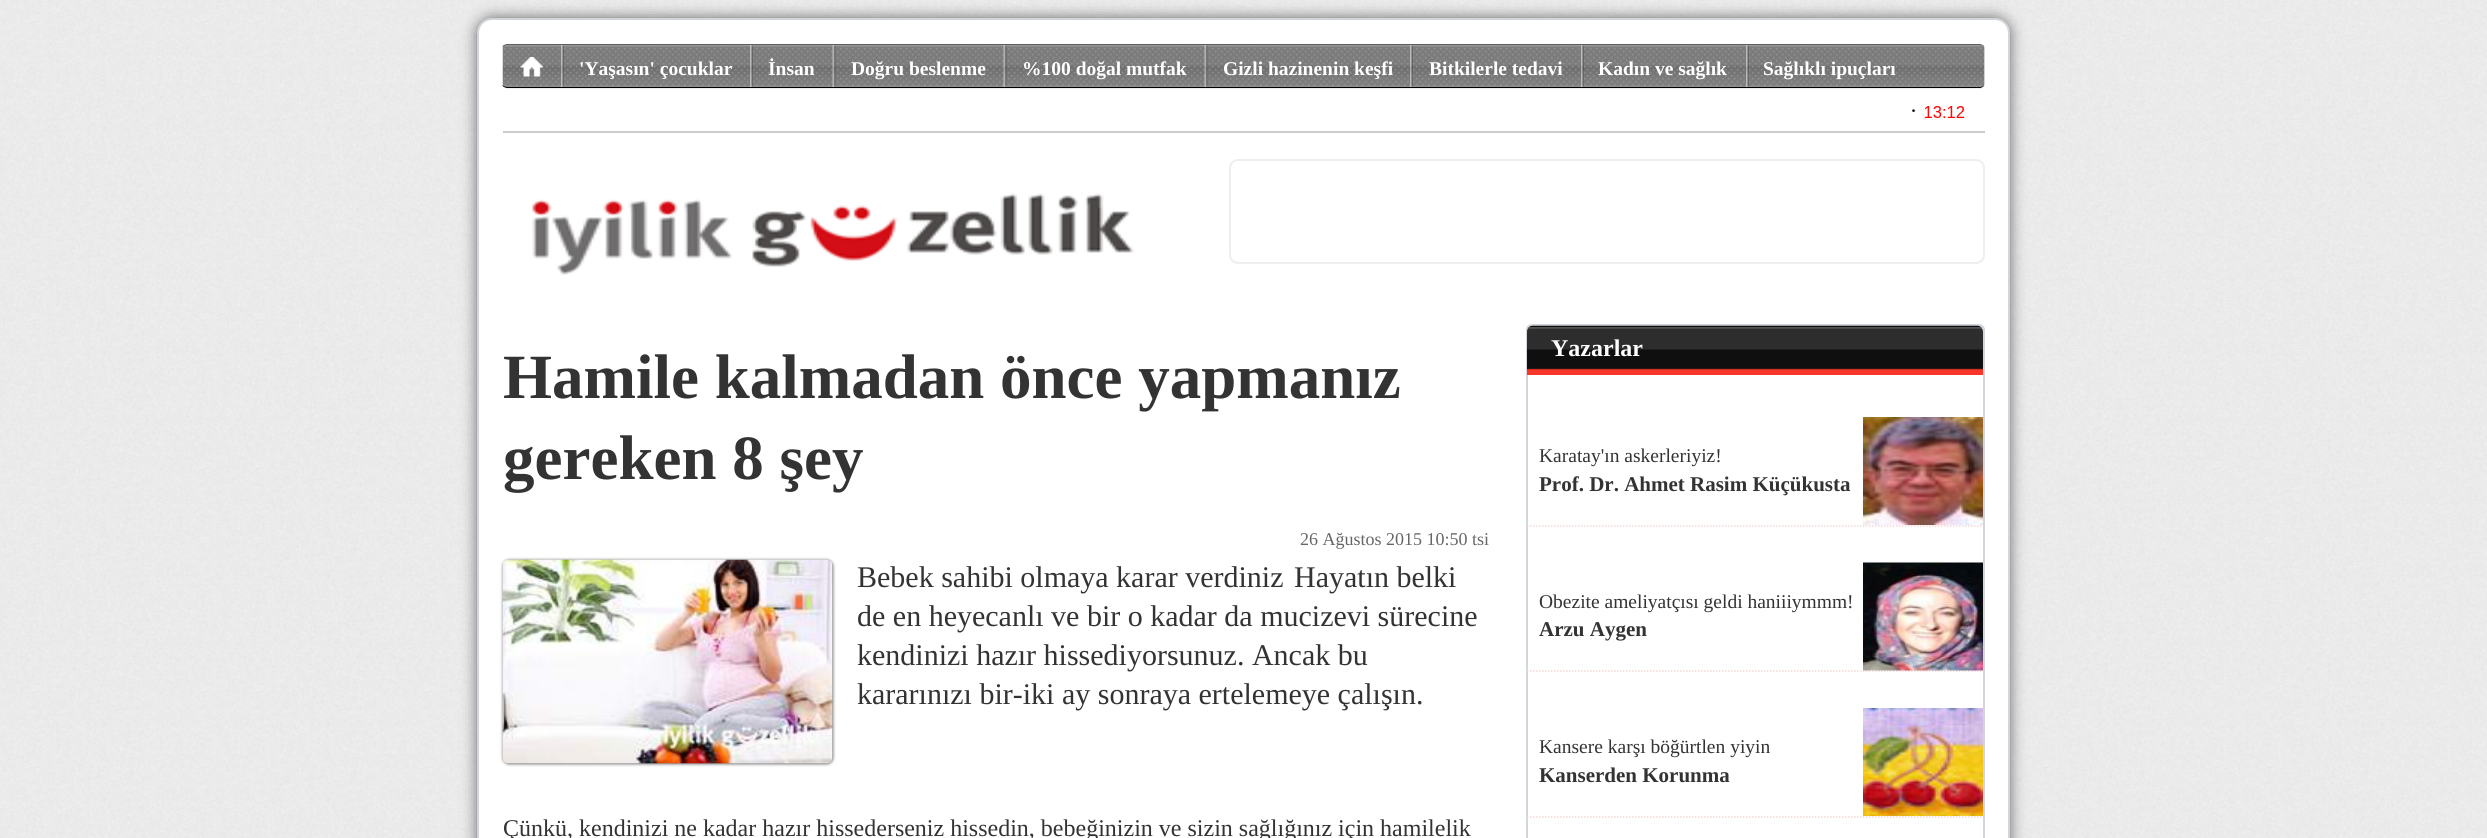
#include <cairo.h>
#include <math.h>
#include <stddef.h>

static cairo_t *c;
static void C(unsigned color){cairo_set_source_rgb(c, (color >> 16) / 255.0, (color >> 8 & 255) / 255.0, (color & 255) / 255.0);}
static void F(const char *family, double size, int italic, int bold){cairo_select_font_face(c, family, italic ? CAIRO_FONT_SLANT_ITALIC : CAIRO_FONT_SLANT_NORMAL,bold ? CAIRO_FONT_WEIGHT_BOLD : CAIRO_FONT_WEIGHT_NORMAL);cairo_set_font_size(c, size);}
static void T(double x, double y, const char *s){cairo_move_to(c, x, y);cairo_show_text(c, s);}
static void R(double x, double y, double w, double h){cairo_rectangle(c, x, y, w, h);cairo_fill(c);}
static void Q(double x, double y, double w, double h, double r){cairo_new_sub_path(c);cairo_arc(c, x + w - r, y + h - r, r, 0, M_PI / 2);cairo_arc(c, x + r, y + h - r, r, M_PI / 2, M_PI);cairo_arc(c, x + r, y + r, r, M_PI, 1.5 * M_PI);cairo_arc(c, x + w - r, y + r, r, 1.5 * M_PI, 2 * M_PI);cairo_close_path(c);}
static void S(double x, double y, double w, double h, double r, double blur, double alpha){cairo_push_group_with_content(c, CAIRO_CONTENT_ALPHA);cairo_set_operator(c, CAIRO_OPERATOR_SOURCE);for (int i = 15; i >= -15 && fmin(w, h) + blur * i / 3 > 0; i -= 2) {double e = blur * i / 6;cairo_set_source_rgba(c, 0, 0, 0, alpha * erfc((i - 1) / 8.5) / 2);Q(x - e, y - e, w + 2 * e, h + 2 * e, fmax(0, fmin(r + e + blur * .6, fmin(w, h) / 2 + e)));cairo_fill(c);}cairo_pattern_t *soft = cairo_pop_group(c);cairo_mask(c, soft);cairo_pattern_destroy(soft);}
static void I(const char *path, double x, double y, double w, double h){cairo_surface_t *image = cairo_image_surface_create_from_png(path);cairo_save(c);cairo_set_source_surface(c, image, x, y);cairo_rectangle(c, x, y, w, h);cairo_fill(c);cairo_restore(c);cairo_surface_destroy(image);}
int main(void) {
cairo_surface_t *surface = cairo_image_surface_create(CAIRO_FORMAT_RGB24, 2487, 838);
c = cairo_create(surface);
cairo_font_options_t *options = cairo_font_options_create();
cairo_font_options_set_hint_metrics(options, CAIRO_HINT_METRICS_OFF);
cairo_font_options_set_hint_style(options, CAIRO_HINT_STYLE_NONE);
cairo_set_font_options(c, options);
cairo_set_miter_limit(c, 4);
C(0xffffff);
cairo_paint(c);
I("1.png",0,0,2487,838);
C(0x666666);
S(477,18,1533,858,15,7.5,1);
C(0xffffff);
Q(478,19,1531,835,14);
cairo_fill_preserve(c);
C(0xd1d6dc);
cairo_stroke(c);
C(0xeeeeee);
Q(503,44,1482,45,5);
cairo_fill(c);
I("2.png",502,45,1483,42);
C(0x5e5e5e);
cairo_new_path(c);
cairo_move_to(c,507,44);
cairo_line_to(c,1980,44);
cairo_curve_to(c,1982,44,1984,46,1984,48);
cairo_curve_to(c,1984,46,1982,45,1980,45);
cairo_line_to(c,507,45);
cairo_curve_to(c,506,45,503,46,502,47);
cairo_curve_to(c,503,45,506,44,507,44);
cairo_close_path(c);
cairo_fill(c);
C(0x000000);
cairo_new_path(c);
cairo_move_to(c,1980,88);
cairo_curve_to(c,1982,88,1984,86,1984,84);
cairo_curve_to(c,1984,86,1982,87,1980,87);
cairo_line_to(c,507,87);
cairo_curve_to(c,506,87,503,86,502,85);
cairo_curve_to(c,503,87,506,88,507,88);
cairo_close_path(c);
cairo_fill(c);
I("3.png",520,57,23,20);
I("4.png",561,45,3,42);
F("Liberation Serif",19.5,0,1);
C(0xffffff);
T(579,75,"'Yaşasın' çocuklar");
I("4.png",750,45,3,42);
T(768,75,"İnsan");
I("5.png",832,45,4,42);
T(851,75,"Doğru beslenme");
I("6.png",1003,45,4,42);
T(1022,75,"%100 doğal mutfak");
I("5.png",1204,45,4,42);
T(1223,75,"Gizli hazinenin keşfi");
I("7.png",1410,45,3,42);
T(1429,75,"Bitkilerle tedavi");
I("7.png",1581,45,3,42);
T(1598,75,"Kadın ve sağlık");
I("7.png",1746,45,3,42);
T(1763,75,"Sağlıklı ipuçları");
C(0xcccccc);
R(503,131,1482,2);
I("8.png",1912,106,53,12);
I("9.png",532,193,602,82);
Q(1230,160,754,103,8);
C(0xeeeeee);
cairo_stroke(c);
F("Liberation Serif",63,0,1);
C(0x333333);
T(503,398,"Hamile kalmadan önce yapmanız");
T(503,479,"gereken 8 şey");
F("Liberation Serif",18,0,0);
C(0x666666);
T(1300,545,"26 Ağustos 2015 10:50 tsi");
C(0x666666);
S(503,560,330,204,6,1.5,1);
I("10.png",502,559,331,205);
F("Liberation Serif",30,0,0);
C(0x333333);
T(857,587,"Bebek sahibi olmaya karar verdiniz");
T(1294,587,"Hayatın belki");
T(857,626,"de en heyecanlı ve bir o kadar da mucizevi sürecine");
T(857,665,"kendinizi hazır hissediyorsunuz. Ancak bu");
T(857,704,"kararınızı bir-iki ay sonraya ertelemeye çalışın.");
F("Liberation Serif",24,0,0);
T(503,836,"Çünkü, kendinizi ne kadar hazır hissederseniz hissedin, bebeğinizin ve sizin sağlığınız için hamilelik");
Q(1527,325,457,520,5);
C(0xd1d6dc);
cairo_stroke(c);
I("11.png",1527,325,456,50);
F("Liberation Serif",24,0,1);
C(0xffffff);
T(1551,356,"Yazarlar");
cairo_new_path(c);
cairo_move_to(c,1527,526);
cairo_line_to(c,1983,526);
C(0xf3d6d6);
cairo_set_line_width(c,1.5);
cairo_set_dash(c,(double[]){1.5,1.5},2,0);
cairo_stroke(c);
F("Liberation Serif",19.5,0,0);
C(0x333333);
T(1539,462,"Karatay'ın askerleriyiz!");
I("12.png",1863,417,120,108);
F("Liberation Serif",21,0,1);
T(1539,491,"Prof. Dr. Ahmet Rasim Küçükusta");
cairo_new_path(c);
cairo_move_to(c,1527,671);
cairo_line_to(c,1983,671);
C(0xf3d6d6);
cairo_stroke(c);
F("Liberation Serif",19.5,0,0);
C(0x333333);
T(1539,608,"Obezite ameliyatçısı geldi haniiiymmm!");
I("13.png",1863,562,120,109);
F("Liberation Serif",21,0,1);
T(1539,636,"Arzu Aygen");
cairo_new_path(c);
cairo_move_to(c,1527,817);
cairo_line_to(c,1983,817);
C(0xf3d6d6);
cairo_stroke(c);
F("Liberation Serif",19.5,0,0);
C(0x333333);
T(1539,753,"Kansere karşı böğürtlen yiyin");
I("14.png",1863,708,120,108);
F("Liberation Serif",21,0,1);
T(1539,782,"Kanserden Korunma");
cairo_surface_write_to_png(surface, "o.png");
cairo_font_options_destroy(options);
cairo_destroy(c);
cairo_surface_destroy(surface);
return 0;
}
